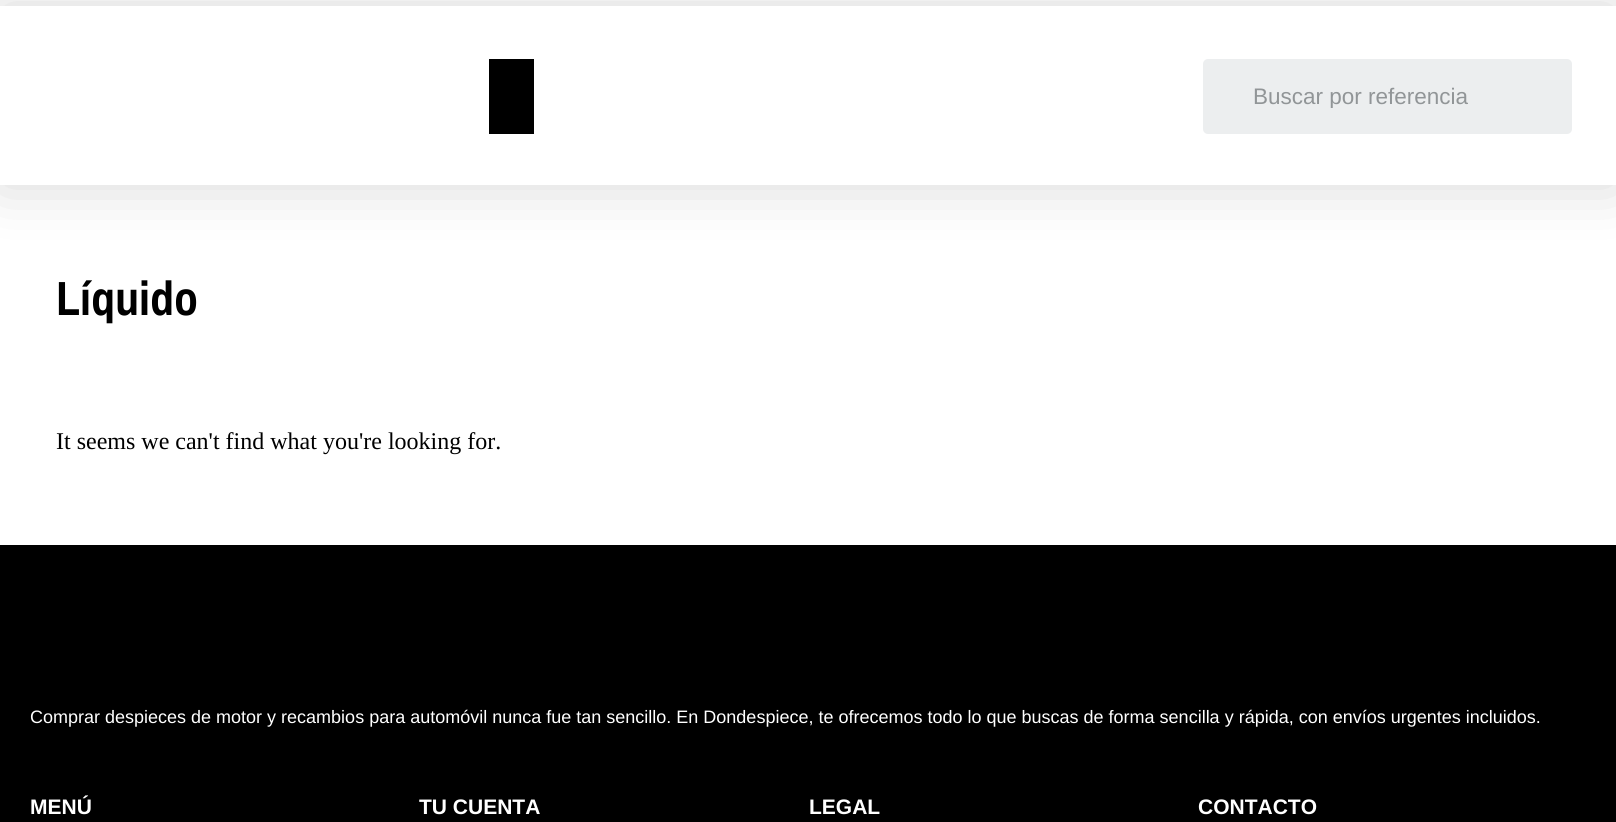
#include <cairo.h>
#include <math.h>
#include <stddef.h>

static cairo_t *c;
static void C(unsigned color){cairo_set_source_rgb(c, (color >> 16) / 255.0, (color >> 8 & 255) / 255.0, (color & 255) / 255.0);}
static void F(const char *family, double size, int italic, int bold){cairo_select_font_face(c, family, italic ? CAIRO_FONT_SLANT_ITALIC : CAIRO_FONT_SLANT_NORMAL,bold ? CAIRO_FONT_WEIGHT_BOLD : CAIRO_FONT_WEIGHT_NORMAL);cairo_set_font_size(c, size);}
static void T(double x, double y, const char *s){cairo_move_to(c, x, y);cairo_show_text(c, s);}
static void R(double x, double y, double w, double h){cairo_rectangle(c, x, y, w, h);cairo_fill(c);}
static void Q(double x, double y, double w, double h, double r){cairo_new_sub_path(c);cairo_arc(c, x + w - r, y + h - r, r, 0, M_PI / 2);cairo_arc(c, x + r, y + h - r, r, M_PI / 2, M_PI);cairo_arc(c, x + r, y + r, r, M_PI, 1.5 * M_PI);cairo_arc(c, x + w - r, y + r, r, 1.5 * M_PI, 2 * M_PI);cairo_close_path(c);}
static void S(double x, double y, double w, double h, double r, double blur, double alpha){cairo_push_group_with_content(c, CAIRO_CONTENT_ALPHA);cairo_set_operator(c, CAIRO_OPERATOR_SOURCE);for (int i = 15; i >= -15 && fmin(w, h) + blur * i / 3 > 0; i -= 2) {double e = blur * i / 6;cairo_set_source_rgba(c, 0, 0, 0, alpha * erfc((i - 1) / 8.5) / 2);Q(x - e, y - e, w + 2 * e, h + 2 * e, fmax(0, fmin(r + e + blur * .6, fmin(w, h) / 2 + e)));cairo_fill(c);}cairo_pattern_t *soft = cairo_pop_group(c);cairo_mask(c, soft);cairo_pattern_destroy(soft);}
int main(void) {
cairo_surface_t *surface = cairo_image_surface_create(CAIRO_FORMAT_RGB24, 1616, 822);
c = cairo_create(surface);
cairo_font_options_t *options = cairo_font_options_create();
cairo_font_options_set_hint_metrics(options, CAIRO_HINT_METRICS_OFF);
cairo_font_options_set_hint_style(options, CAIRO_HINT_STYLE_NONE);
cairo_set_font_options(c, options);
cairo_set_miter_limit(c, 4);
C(0xffffff);
cairo_paint(c);
cairo_save(c);
cairo_set_fill_rule(c,CAIRO_FILL_RULE_EVEN_ODD);
cairo_new_path(c);
cairo_move_to(c,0,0);
cairo_line_to(c,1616,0);
cairo_line_to(c,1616,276);
cairo_line_to(c,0,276);
cairo_close_path(c);
cairo_move_to(c,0,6);
cairo_line_to(c,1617,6);
cairo_line_to(c,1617,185);
cairo_line_to(c,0,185);
cairo_close_path(c);
cairo_clip(c);
C(0x000000);
S(0,6,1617,179,0,30,.16);
cairo_restore(c);
C(0x000000);
R(489,59,45,75);
C(0xeceeef);
Q(1203,59,369,75,5);
cairo_fill(c);
cairo_save(c);
cairo_rectangle(c,1253,83,273,25);
cairo_clip(c);
F("Liberation Sans",22.5,0,0);
C(0x919597);
T(1253,104,"Buscar por referencia");
cairo_restore(c);
F("Archivo Narrow",48,0,1);
C(0x000000);
T(56,315,"Líquido");
F("Liberation Serif",24,0,0);
T(56,449,"It seems we can't find what you're looking for.");
R(0,545,1616,277);
F("Liberation Sans",18,0,0);
C(0xffffff);
T(30,723,"Comprar despieces de motor y recambios para automóvil nunca fue tan sencillo. En Dondespiece, te ofrecemos todo lo que buscas de forma sencilla y rápida, con envíos urgentes incluidos.");
F("Liberation Sans",21,0,1);
T(30,814,"MENÚ");
T(419,814,"TU CUENTA");
T(809,814,"LEGAL");
T(1198,814,"CONTACTO");
cairo_surface_write_to_png(surface, "o.png");
cairo_font_options_destroy(options);
cairo_destroy(c);
cairo_surface_destroy(surface);
return 0;
}
